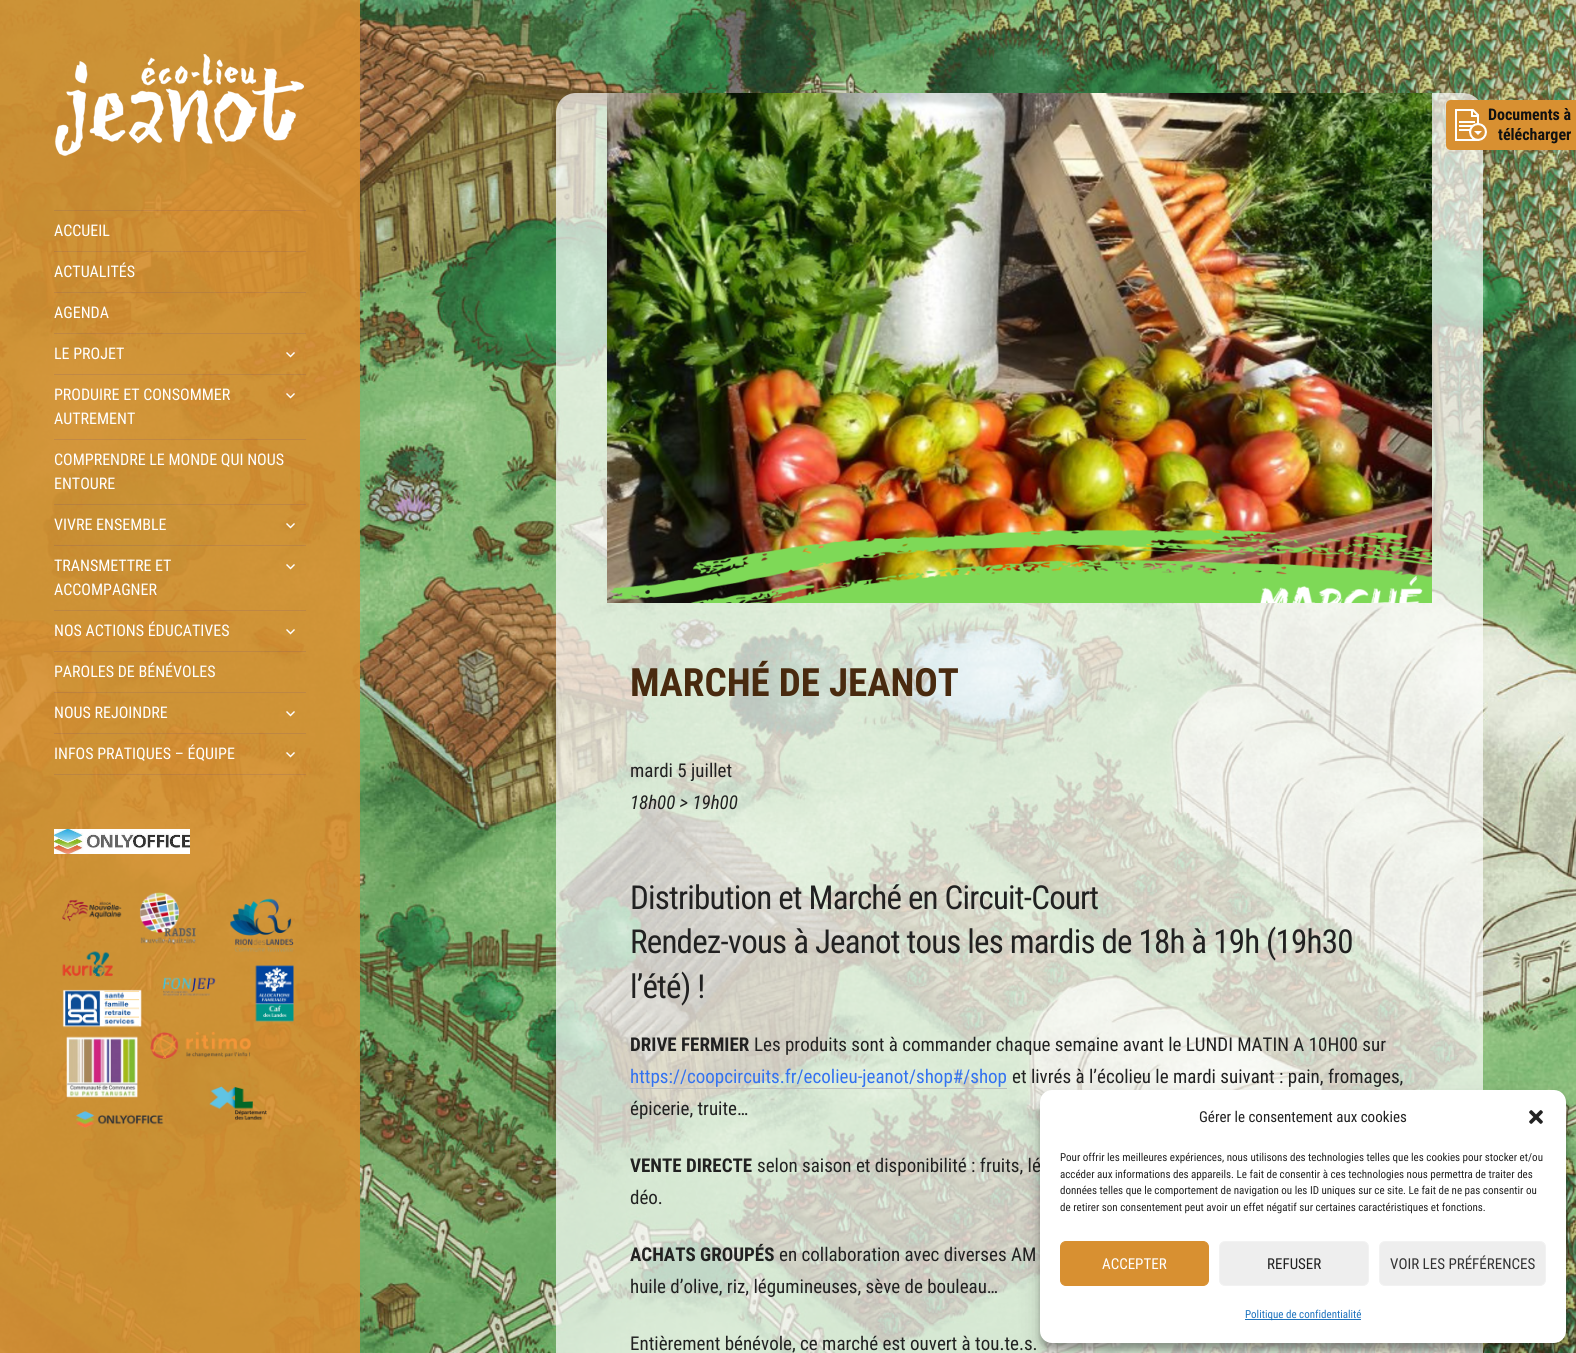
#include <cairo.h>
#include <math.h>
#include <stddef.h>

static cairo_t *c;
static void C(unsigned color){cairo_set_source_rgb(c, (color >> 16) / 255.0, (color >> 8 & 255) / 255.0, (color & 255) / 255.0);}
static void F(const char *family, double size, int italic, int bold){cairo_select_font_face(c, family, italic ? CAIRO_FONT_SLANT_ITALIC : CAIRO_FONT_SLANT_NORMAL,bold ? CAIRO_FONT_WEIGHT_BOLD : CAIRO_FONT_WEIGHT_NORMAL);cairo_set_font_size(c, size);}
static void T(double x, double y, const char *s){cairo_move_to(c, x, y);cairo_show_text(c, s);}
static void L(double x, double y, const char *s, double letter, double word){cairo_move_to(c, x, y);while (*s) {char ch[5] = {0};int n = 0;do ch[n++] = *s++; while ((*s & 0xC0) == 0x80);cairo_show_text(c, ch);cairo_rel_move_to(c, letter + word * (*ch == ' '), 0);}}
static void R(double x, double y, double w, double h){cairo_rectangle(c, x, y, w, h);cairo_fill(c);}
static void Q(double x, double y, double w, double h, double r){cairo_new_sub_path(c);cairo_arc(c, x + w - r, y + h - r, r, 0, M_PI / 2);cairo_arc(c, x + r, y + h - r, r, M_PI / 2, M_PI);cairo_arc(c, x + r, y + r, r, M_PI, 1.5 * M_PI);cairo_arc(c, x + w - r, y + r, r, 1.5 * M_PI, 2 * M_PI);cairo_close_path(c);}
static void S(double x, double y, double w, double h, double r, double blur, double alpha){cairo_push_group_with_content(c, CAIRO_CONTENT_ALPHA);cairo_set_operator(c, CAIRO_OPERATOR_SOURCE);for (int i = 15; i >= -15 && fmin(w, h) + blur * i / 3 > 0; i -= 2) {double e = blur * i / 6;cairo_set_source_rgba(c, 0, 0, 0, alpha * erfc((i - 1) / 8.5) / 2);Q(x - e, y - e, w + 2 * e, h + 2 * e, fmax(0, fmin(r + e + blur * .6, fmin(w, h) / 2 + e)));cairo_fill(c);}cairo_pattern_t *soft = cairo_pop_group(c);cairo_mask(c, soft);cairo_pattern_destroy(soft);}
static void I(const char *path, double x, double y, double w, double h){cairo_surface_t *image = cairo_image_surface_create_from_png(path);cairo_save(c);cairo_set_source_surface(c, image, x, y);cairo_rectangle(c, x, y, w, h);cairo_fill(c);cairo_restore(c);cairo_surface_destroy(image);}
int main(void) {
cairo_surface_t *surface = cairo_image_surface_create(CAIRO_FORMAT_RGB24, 1576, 1353);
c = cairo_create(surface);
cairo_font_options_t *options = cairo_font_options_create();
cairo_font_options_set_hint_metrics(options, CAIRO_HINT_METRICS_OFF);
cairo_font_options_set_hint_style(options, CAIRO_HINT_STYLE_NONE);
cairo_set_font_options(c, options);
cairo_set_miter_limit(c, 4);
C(0xffffff);
cairo_paint(c);
I("1.png",0,0,1576,1353);
cairo_set_source_rgba(c,0.847,0.565,0.192,0.9);
R(0,0,360,1353);
cairo_set_source_rgba(c,1,1,1,0.7);
Q(556,93,927,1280,20);
cairo_fill(c);
C(0xd89031);
cairo_new_path(c);
cairo_move_to(c,1451,100);
cairo_line_to(c,1576,100);
cairo_line_to(c,1576,150);
cairo_line_to(c,1451,150);
cairo_curve_to(c,1448,150,1446,148,1446,145);
cairo_line_to(c,1446,105);
cairo_curve_to(c,1446,102,1448,100,1451,100);
cairo_close_path(c);
cairo_fill(c);
I("2.png",1455,109,32,32);
F("Roboto Condensed",16,0,1);
C(0x111111);
T(1488,120,"Documents à");
T(1498,140,"télécharger");
I("3.png",55,54,249,102);
cairo_set_source_rgba(c,0.149,0.11,0.698,0.1);
R(54,210,252,1);
R(54,774,252,1);
F("Roboto Condensed",16,0,0);
C(0xffffff);
T(54,236,"ACCUEIL");
cairo_set_source_rgba(c,0.149,0.11,0.698,0.1);
R(54,251,252,1);
C(0xffffff);
T(54,277,"ACTUALITÉS");
cairo_set_source_rgba(c,0.149,0.11,0.698,0.1);
R(54,292,252,1);
C(0xffffff);
T(54,318,"AGENDA");
cairo_set_source_rgba(c,0.149,0.11,0.698,0.1);
R(54,333,252,1);
C(0xffffff);
T(54,359,"LE PROJET");
I("4.png",286,352,9,6);
cairo_set_source_rgba(c,0.149,0.11,0.698,0.1);
R(54,374,252,1);
C(0xffffff);
T(54,400,"PRODUIRE ET CONSOMMER");
T(54,424,"AUTREMENT");
I("5.png",286,393,9,6);
cairo_set_source_rgba(c,0.149,0.11,0.698,0.1);
R(54,439,252,1);
C(0xffffff);
T(54,465,"COMPRENDRE LE MONDE QUI NOUS");
T(54,489,"ENTOURE");
cairo_set_source_rgba(c,0.149,0.11,0.698,0.1);
R(54,504,252,1);
C(0xffffff);
T(54,530,"VIVRE ENSEMBLE");
I("6.png",286,523,9,6);
cairo_set_source_rgba(c,0.149,0.11,0.698,0.1);
R(54,545,252,1);
C(0xffffff);
T(54,571,"TRANSMETTRE ET");
T(54,595,"ACCOMPAGNER");
I("7.png",286,564,9,6);
cairo_set_source_rgba(c,0.149,0.11,0.698,0.1);
R(54,610,252,1);
C(0xffffff);
T(54,636,"NOS ACTIONS ÉDUCATIVES");
I("8.png",286,629,9,6);
cairo_set_source_rgba(c,0.149,0.11,0.698,0.1);
R(54,651,252,1);
C(0xffffff);
T(54,677,"PAROLES DE BÉNÉVOLES");
cairo_set_source_rgba(c,0.149,0.11,0.698,0.1);
R(54,692,252,1);
C(0xffffff);
T(54,718,"NOUS REJOINDRE");
I("9.png",286,711,9,6);
cairo_set_source_rgba(c,0.149,0.11,0.698,0.1);
R(54,733,252,1);
C(0xffffff);
T(54,759,"INFOS PRATIQUES – ÉQUIPE");
I("10.png",286,752,9,6);
I("11.png",54,829,136,25);
I("12.png",62,892,232,236);
I("13.png",607,93,825,510);
F("Roboto Condensed",39,0,1);
C(0x492a0f);
T(630,696,"MARCHÉ DE JEANOT");
F("Roboto Condensed",19,0,0);
C(0x212121);
T(630,777,"mardi 5 juillet");
F("Roboto Condensed",19,1,0);
T(630,809,"18h00 > 19h00");
F("Roboto Condensed",33,0,0);
L(630,909,"Distribution et Marché en Circuit-Court",-.8,0);
L(630,953,"Rendez-vous à Jeanot tous les mardis de 18h à 19h (19h30",-.8,0);
L(630,998,"l’été) !",-.8,0);
F("Roboto Condensed",19,0,1);
T(630,1051,"DRIVE FERMIER");
F("Roboto Condensed",19,0,0);
T(754,1051,"Les produits sont à commander chaque semaine avant le LUNDI MATIN A 10H00 sur");
C(0x3372f0);
T(630,1083,"https://coopcircuits.fr/ecolieu-jeanot/shop#/shop");
C(0xbebebe);
R(630,1088,377,1);
C(0x212121);
T(1012,1083,"et livrés à l’écolieu le mardi suivant : pain, fromages,");
T(630,1115,"épicerie, truite…");
F("Roboto Condensed",19,0,1);
T(630,1172,"VENTE DIRECTE");
F("Roboto Condensed",19,0,0);
T(757,1172,"selon saison et disponibilité : fruits, lé");
T(630,1204,"déo.");
F("Roboto Condensed",19,0,1);
T(630,1261,"ACHATS GROUPÉS");
F("Roboto Condensed",19,0,0);
T(779,1261,"en collaboration avec diverses AM");
T(630,1293,"huile d’olive, riz, légumineuses, sève de bouleau…");
T(630,1350,"Entièrement bénévole, ce marché est ouvert à tou.te.s.");
C(0x000000);
S(1040,1096,526,253,12,3,.23);
S(1040,1100,526,253,12,10,.19);
C(0xffffff);
Q(1040,1090,526,253,12);
cairo_fill(c);
F("Roboto Condensed",15,0,0);
C(0x212121);
T(1199,1122,"Gérer le consentement aux cookies");
I("14.png",1529,1110,14,14);
F("Roboto Condensed",11,0,0);
T(1060,1161,"Pour offrir les meilleures expériences, nous utilisons des technologies telles que les cookies pour stocker et/ou");
T(1060,1178,"accéder aux informations des appareils. Le fait de consentir à ces technologies nous permettra de traiter des");
T(1060,1194,"données telles que le comportement de navigation ou les ID uniques sur ce site. Le fait de ne pas consentir ou");
T(1060,1211,"de retirer son consentement peut avoir un effet négatif sur certaines caractéristiques et fonctions.");
C(0xd89031);
Q(1060.5,1241.5,148,44,5.5);
cairo_fill_preserve(c);
cairo_set_line_width(c,1);
cairo_stroke(c);
F("Roboto Condensed",15,0,0);
C(0xffffff);
T(1102,1269,"ACCEPTER");
C(0xeeeeee);
Q(1219.5,1241.5,149,44,5.5);
cairo_fill_preserve(c);
C(0xf2f2f2);
cairo_stroke(c);
C(0x212121);
T(1267,1269,"REFUSER");
C(0xeeeeee);
Q(1379.5,1241.5,166,44,5.5);
cairo_fill_preserve(c);
C(0xf2f2f2);
cairo_stroke(c);
C(0x333333);
T(1390,1269,"VOIR LES PRÉFÉRENCES");
C(0x1e73be);
R(1245,1319,116,1);
F("Roboto Condensed",11,0,0);
T(1245,1318,"Politique de confidentialité");
cairo_surface_write_to_png(surface, "o.png");
cairo_font_options_destroy(options);
cairo_destroy(c);
cairo_surface_destroy(surface);
return 0;
}
